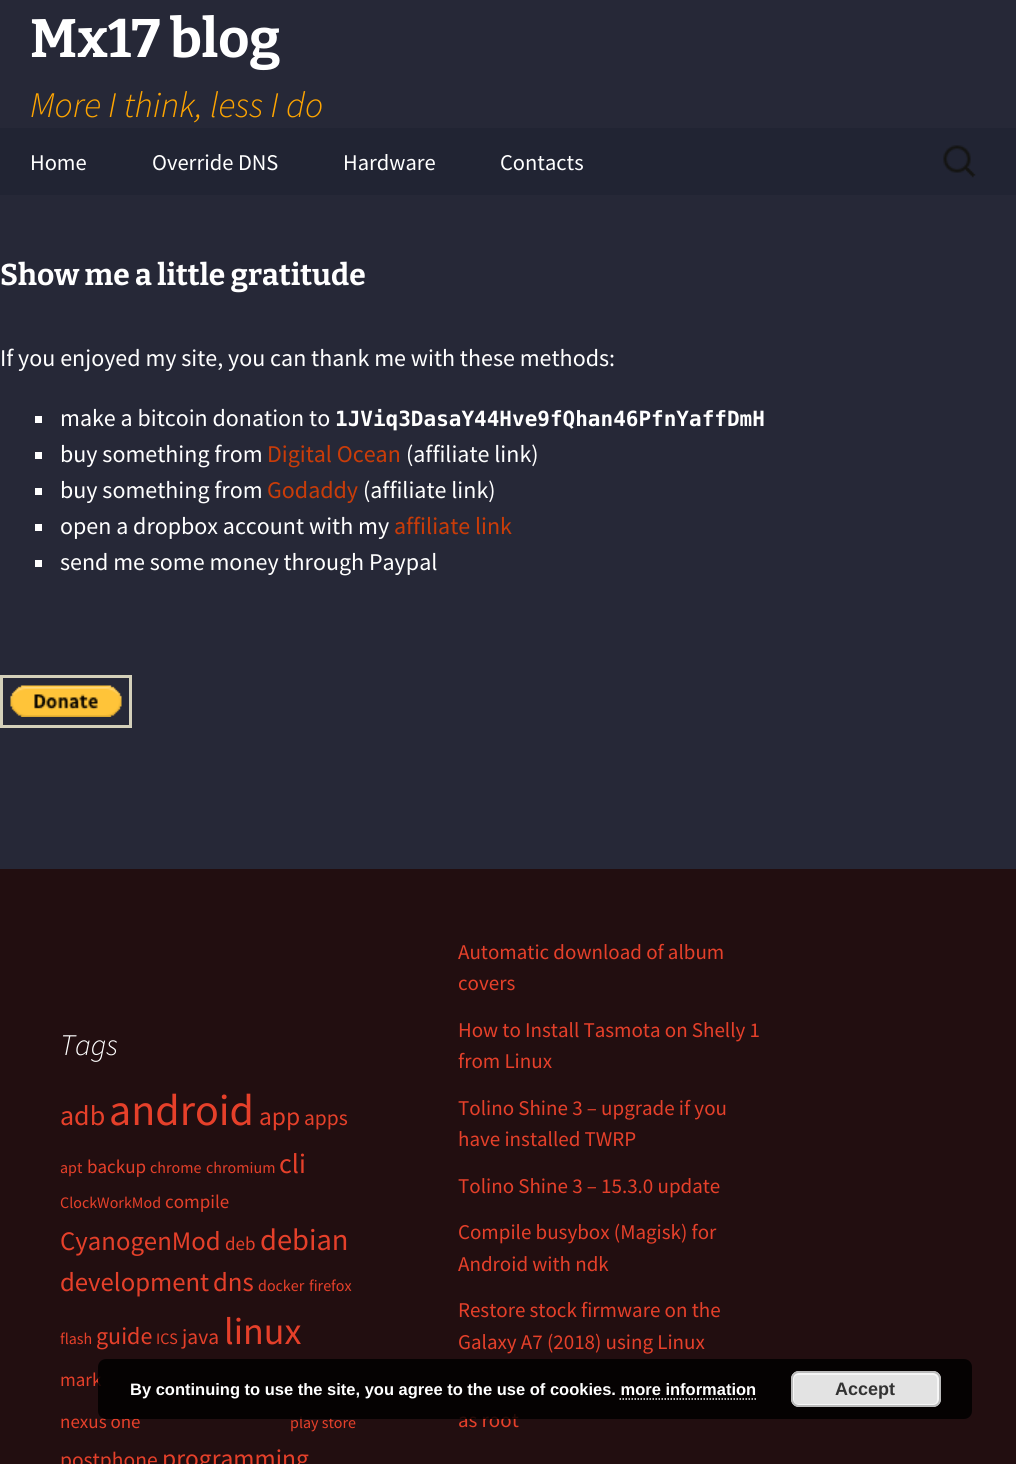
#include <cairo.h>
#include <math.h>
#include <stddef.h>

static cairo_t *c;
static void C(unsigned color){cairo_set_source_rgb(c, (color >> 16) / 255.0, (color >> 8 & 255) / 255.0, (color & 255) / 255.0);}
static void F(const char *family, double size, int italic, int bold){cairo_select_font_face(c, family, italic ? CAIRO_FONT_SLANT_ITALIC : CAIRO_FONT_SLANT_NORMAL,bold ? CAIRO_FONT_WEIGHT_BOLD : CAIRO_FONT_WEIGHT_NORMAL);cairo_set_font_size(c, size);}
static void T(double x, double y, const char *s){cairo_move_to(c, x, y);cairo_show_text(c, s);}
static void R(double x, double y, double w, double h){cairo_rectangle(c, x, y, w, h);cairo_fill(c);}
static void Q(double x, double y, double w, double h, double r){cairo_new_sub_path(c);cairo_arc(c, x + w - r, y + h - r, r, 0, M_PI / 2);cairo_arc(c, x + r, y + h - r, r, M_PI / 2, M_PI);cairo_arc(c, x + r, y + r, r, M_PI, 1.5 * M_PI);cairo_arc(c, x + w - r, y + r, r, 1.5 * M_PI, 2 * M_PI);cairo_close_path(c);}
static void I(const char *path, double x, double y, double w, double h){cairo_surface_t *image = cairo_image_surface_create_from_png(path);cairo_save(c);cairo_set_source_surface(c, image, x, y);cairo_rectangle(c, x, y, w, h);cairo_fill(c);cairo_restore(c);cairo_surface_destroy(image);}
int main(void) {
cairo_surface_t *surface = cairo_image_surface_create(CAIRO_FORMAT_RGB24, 1016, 1464);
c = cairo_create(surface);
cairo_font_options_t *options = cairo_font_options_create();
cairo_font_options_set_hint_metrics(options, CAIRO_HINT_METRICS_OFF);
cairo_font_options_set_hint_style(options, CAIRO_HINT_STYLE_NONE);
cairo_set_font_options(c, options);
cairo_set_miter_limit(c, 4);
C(0x262837);
cairo_paint(c);
F("Bitter Thin",54,0,0);
C(0xffffff);
T(30,57,"Mx17 blog");
F("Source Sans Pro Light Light",36,1,0);
C(0xffa500);
T(30,117,"More I think, less I do");
C(0x212433);
R(0,128,1016,67);
F("Source Sans Pro",22.5,0,0);
C(0xffffff);
T(30,170,"Home");
T(152,170,"Override DNS");
T(343,170,"Hardware");
T(500,170,"Contacts");
I("1.png",943,145,33,33);
F("Bitter Thin",30,0,0);
T(0,285,"Show me a little gratitude");
F("Source Sans Pro",24,0,0);
T(0,366,"If you enjoyed my site, you can thank me with these methods:");
R(35,416,7,7);
T(60,426,"make a bitcoin donation to");
F("DejaVu Sans Mono",21,0,1);
T(335,426,"1JViq3DasaY44Hve9fQhan46PfnYaffDmH");
R(35,452,7,7);
F("Source Sans Pro",24,0,0);
T(60,462,"buy something from");
C(0xca3c08);
T(267,462,"Digital Ocean");
C(0xffffff);
T(406,462,"(affiliate link)");
R(35,488,7,7);
T(60,498,"buy something from");
C(0xca3c08);
T(267,498,"Godaddy");
C(0xffffff);
T(363,498,"(affiliate link)");
R(35,524,7,7);
T(60,534,"open a dropbox account with my");
C(0xca3c08);
T(394,534,"affiliate link");
C(0xffffff);
R(35,560,7,7);
T(60,570,"send me some money through Paypal");
cairo_rectangle(c,1.5,676.5,129,50);
C(0xd4d0ba);
cairo_set_line_width(c,3);
cairo_stroke(c);
I("2.png",10,685,112,32);
C(0x220e10);
R(0,869,1016,595);
F("Source Sans Pro Light Light",30,1,0);
C(0xffffff);
T(60,1055,"Tags");
F("Source Sans Pro",28,0,0);
C(0xe6402a);
T(60,1125,"adb");
F("Source Sans Pro",44,0,0);
T(109,1125,"android");
F("Source Sans Pro",25.5,0,0);
T(259,1125,"app");
F("Source Sans Pro",21.5,0,0);
T(304,1125,"apps");
F("Source Sans Pro",16,0,0);
T(60,1173,"apt");
F("Source Sans Pro",19,0,0);
T(87,1173,"backup");
F("Source Sans Pro",16,0,0);
T(150,1173,"chrome");
T(206,1173,"chromium");
F("Source Sans Pro",28,0,0);
T(279,1173,"cli");
F("Source Sans Pro",16,0,0);
T(60,1208,"ClockWorkMod");
F("Source Sans Pro",19,0,0);
T(165,1208,"compile");
F("Source Sans Pro",26.75,0,0);
T(60,1250,"CyanogenMod");
F("Source Sans Pro",19,0,0);
T(225,1250,"deb");
F("Source Sans Pro",30.5,0,0);
T(260,1250,"debian");
F("Source Sans Pro",26.75,0,0);
T(60,1291,"development");
T(213,1291,"dns");
F("Source Sans Pro",16,0,0);
T(258,1291,"docker");
T(309,1291,"firefox");
T(60,1344,"flash");
F("Source Sans Pro",24,0,0);
T(96,1344,"guide");
F("Source Sans Pro",16,0,0);
T(156,1344,"ICS");
F("Source Sans Pro",21.5,0,0);
T(182,1344,"java");
F("Source Sans Pro",38,0,0);
T(224,1344,"linux");
F("Source Sans Pro",19,0,0);
T(60,1386,"mark");
T(60,1428,"nexus one");
F("Source Sans Pro",16,0,0);
T(290,1428,"play store");
F("Source Sans Pro",21.5,0,0);
T(60,1467,"postphone");
F("Source Sans Pro",25.5,0,0);
T(162,1467,"programming");
F("Source Sans Pro",21,0,0);
T(458,959,"Automatic download of album");
T(458,990,"covers");
T(458,1037,"How to Install Tasmota on Shelly 1");
T(458,1068,"from Linux");
T(458,1115,"Tolino Shine 3 – upgrade if you");
T(458,1146,"have installed TWRP");
T(458,1193,"Tolino Shine 3 – 15.3.0 update");
T(458,1239,"Compile busybox (Magisk) for");
T(458,1271,"Android with ndk");
T(458,1317,"Restore stock firmware on the");
T(458,1349,"Galaxy A7 (2018) using Linux");
T(458,1427,"as root");
cairo_set_source_rgba(c,0,0,0,0.85);
Q(98,1359,874,60,8);
cairo_fill(c);
F("Liberation Sans",16.5,0,1);
C(0xffffff);
T(130,1395,"By continuing to use the site, you agree to the use of cookies. more information");
C(0xe3e3e3);
Q(791,1371,150,36,8);
cairo_fill(c);
Q(793,1374,145,31,5);
C(0xf6f6f6);
cairo_set_line_width(c,2);
cairo_stroke(c);
Q(792,1372,148,34,7);
C(0xbbbbbb);
cairo_stroke(c);
F("Liberation Sans",18,0,1);
C(0x333333);
T(835,1395,"Accept");
cairo_new_path(c);
cairo_move_to(c,619.5,1399);
cairo_line_to(c,756,1399);
C(0xffffff);
cairo_set_line_width(c,1.5);
cairo_set_dash(c,(double[]){1.5,1.5},2,0);
cairo_stroke(c);
cairo_surface_write_to_png(surface, "o.png");
cairo_font_options_destroy(options);
cairo_destroy(c);
cairo_surface_destroy(surface);
return 0;
}
